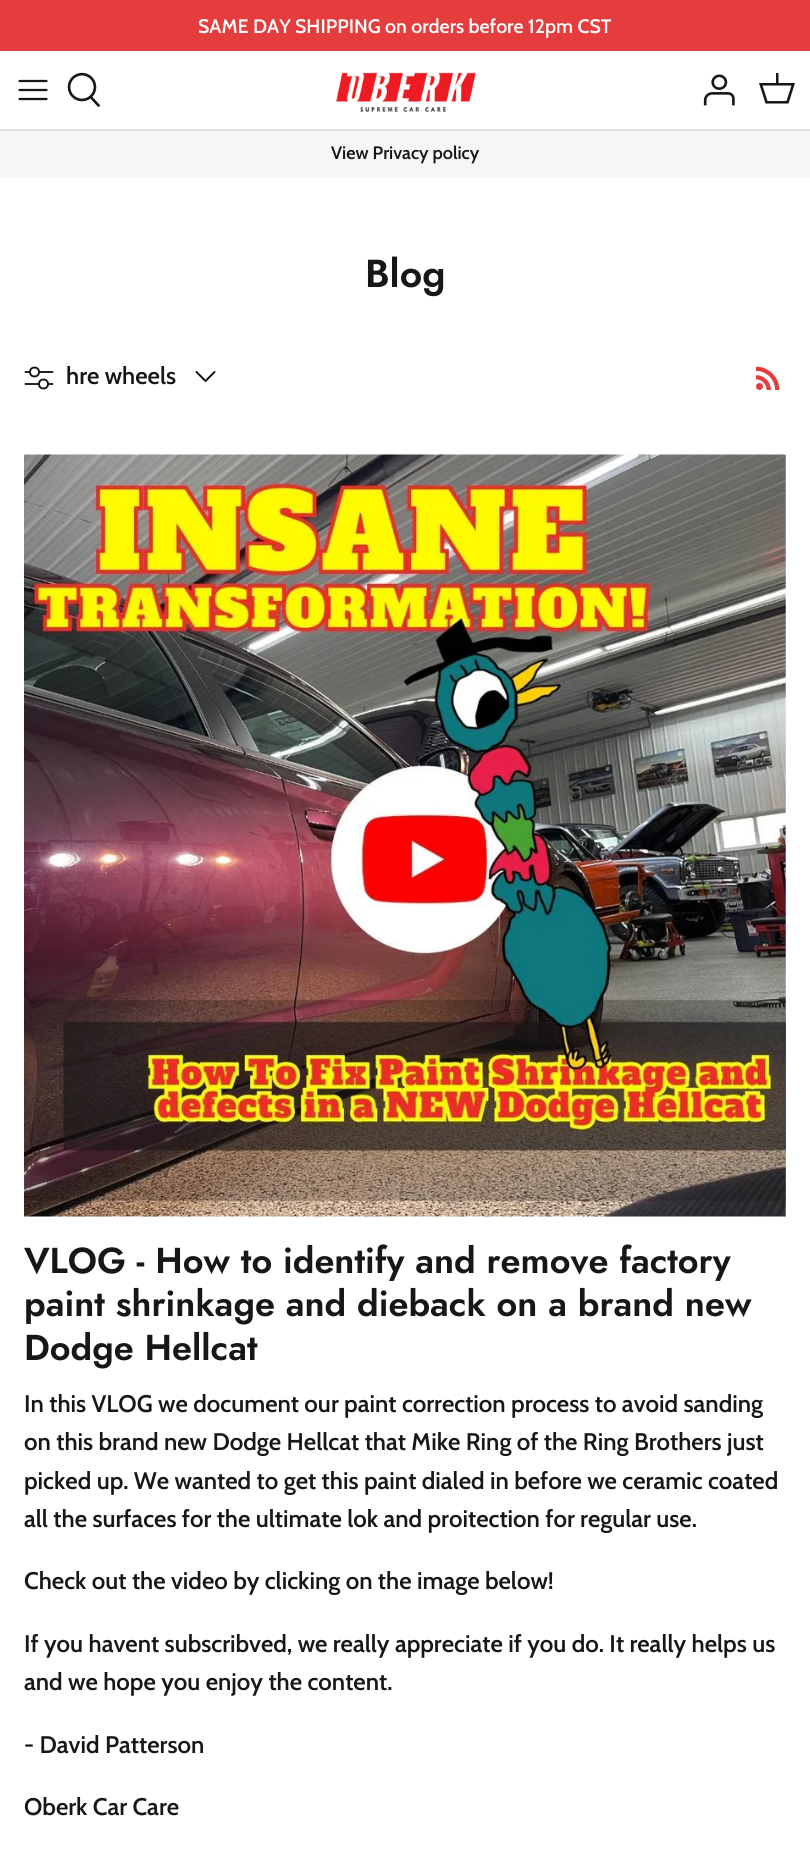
#include <cairo.h>
#include <math.h>
#include <stddef.h>

static cairo_t *c;
static void C(unsigned color){cairo_set_source_rgb(c, (color >> 16) / 255.0, (color >> 8 & 255) / 255.0, (color & 255) / 255.0);}
static void F(const char *family, double size, int italic, int bold){cairo_select_font_face(c, family, italic ? CAIRO_FONT_SLANT_ITALIC : CAIRO_FONT_SLANT_NORMAL,bold ? CAIRO_FONT_WEIGHT_BOLD : CAIRO_FONT_WEIGHT_NORMAL);cairo_set_font_size(c, size);}
static void T(double x, double y, const char *s){cairo_move_to(c, x, y);cairo_show_text(c, s);}
static void R(double x, double y, double w, double h){cairo_rectangle(c, x, y, w, h);cairo_fill(c);}
static void I(const char *path, double x, double y, double w, double h){cairo_surface_t *image = cairo_image_surface_create_from_png(path);cairo_save(c);cairo_set_source_surface(c, image, x, y);cairo_rectangle(c, x, y, w, h);cairo_fill(c);cairo_restore(c);cairo_surface_destroy(image);}
int main(void) {
cairo_surface_t *surface = cairo_image_surface_create(CAIRO_FORMAT_RGB24, 810, 1854);
c = cairo_create(surface);
cairo_font_options_t *options = cairo_font_options_create();
cairo_font_options_set_hint_metrics(options, CAIRO_HINT_METRICS_OFF);
cairo_font_options_set_hint_style(options, CAIRO_HINT_STYLE_NONE);
cairo_set_font_options(c, options);
cairo_set_miter_limit(c, 4);
C(0xffffff);
cairo_paint(c);
C(0xe53d3d);
R(0,0,810,51);
F("Cabin SemiBold",19.5,0,0);
C(0xffffff);
T(198,33,"SAME DAY SHIPPING on orders before 12pm CST");
C(0xdfdfdf);
R(0,129,810,2);
cairo_new_path(c);
cairo_move_to(c,19.5,90);
cairo_line_to(c,46.5,90);
cairo_move_to(c,19.5,81);
cairo_line_to(c,46.5,81);
cairo_move_to(c,19.5,99);
cairo_line_to(c,46.5,99);
C(0x171717);
cairo_set_line_width(c,2.2);
cairo_set_line_cap(c,CAIRO_LINE_CAP_ROUND);
cairo_set_line_join(c,CAIRO_LINE_JOIN_ROUND);
cairo_stroke(c);
I("1.png",67,72,34,36);
I("2.png",336,72,140,40);
I("3.png",703,74,32,32);
cairo_new_path(c);
cairo_move_to(c,776,83);
cairo_line_to(c,776,73);
cairo_line_to(c,778.5,73);
cairo_line_to(c,778.5,83);
cairo_line_to(c,795,83);
cairo_line_to(c,788.5,103.5);
cairo_line_to(c,765.5,103.5);
cairo_line_to(c,759,83);
cairo_close_path(c);
cairo_move_to(c,762.5,85.5);
cairo_line_to(c,767.5,101);
cairo_line_to(c,786.5,101);
cairo_line_to(c,791.5,85.5);
cairo_close_path(c);
cairo_fill(c);
C(0xf4f6f8);
R(0,131,810,46);
F("Cabin SemiBold",18,0,0);
C(0x171717);
T(331,159,"View Privacy policy");
F("Jost SemiBold",39,0,0);
T(365,287,"Blog");
cairo_new_path(c);
cairo_move_to(c,25.5,372);
cairo_line_to(c,52.5,372);
cairo_move_to(c,25.5,384);
cairo_line_to(c,52.5,384);
C(0x151515);
cairo_set_line_width(c,1.9);
cairo_stroke(c);
C(0xffffff);
cairo_arc(c,34.5,372,4.5,0,2 * M_PI);
cairo_fill_preserve(c);
C(0x151515);
cairo_set_line_cap(c,CAIRO_LINE_CAP_BUTT);
cairo_set_line_join(c,CAIRO_LINE_JOIN_MITER);
cairo_stroke(c);
C(0xffffff);
cairo_arc(c,43.5,384,4.5,0,2 * M_PI);
cairo_fill_preserve(c);
C(0x151515);
cairo_stroke(c);
F("Cabin SemiBold",24,0,0);
C(0x171717);
T(66,384,"hre wheels");
cairo_new_path(c);
cairo_move_to(c,196.5,372);
cairo_line_to(c,205.5,381);
cairo_line_to(c,214.5,372);
C(0x151515);
cairo_set_line_width(c,2);
cairo_set_line_cap(c,CAIRO_LINE_CAP_ROUND);
cairo_set_line_join(c,CAIRO_LINE_JOIN_ROUND);
cairo_stroke(c);
I("4.png",756,366,24,24);
I("5.png",24,454,762,763);
F("Jost SemiBold",36,0,0);
C(0x171717);
T(24,1273,"VLOG - How to identify and remove factory");
T(24,1316,"paint shrinkage and dieback on a brand new");
T(24,1360,"Dodge Hellcat");
F("Cabin SemiBold",24,0,0);
T(24,1412,"In this VLOG we document our paint correction process to avoid sanding");
T(24,1450,"on this brand new Dodge Hellcat that Mike Ring of the Ring Brothers just");
T(24,1489,"picked up. We wanted to get this paint dialed in before we ceramic coated");
T(24,1527,"all the surfaces for the ultimate lok and proitection for regular use.");
T(24,1589,"Check out the video by clicking on the image below!");
T(24,1652,"If you havent subscribved, we really appreciate if you do. It really helps us");
T(24,1690,"and we hope you enjoy the content.");
T(24,1753,"- David Patterson");
T(24,1815,"Oberk Car Care");
cairo_surface_write_to_png(surface, "o.png");
cairo_font_options_destroy(options);
cairo_destroy(c);
cairo_surface_destroy(surface);
return 0;
}
